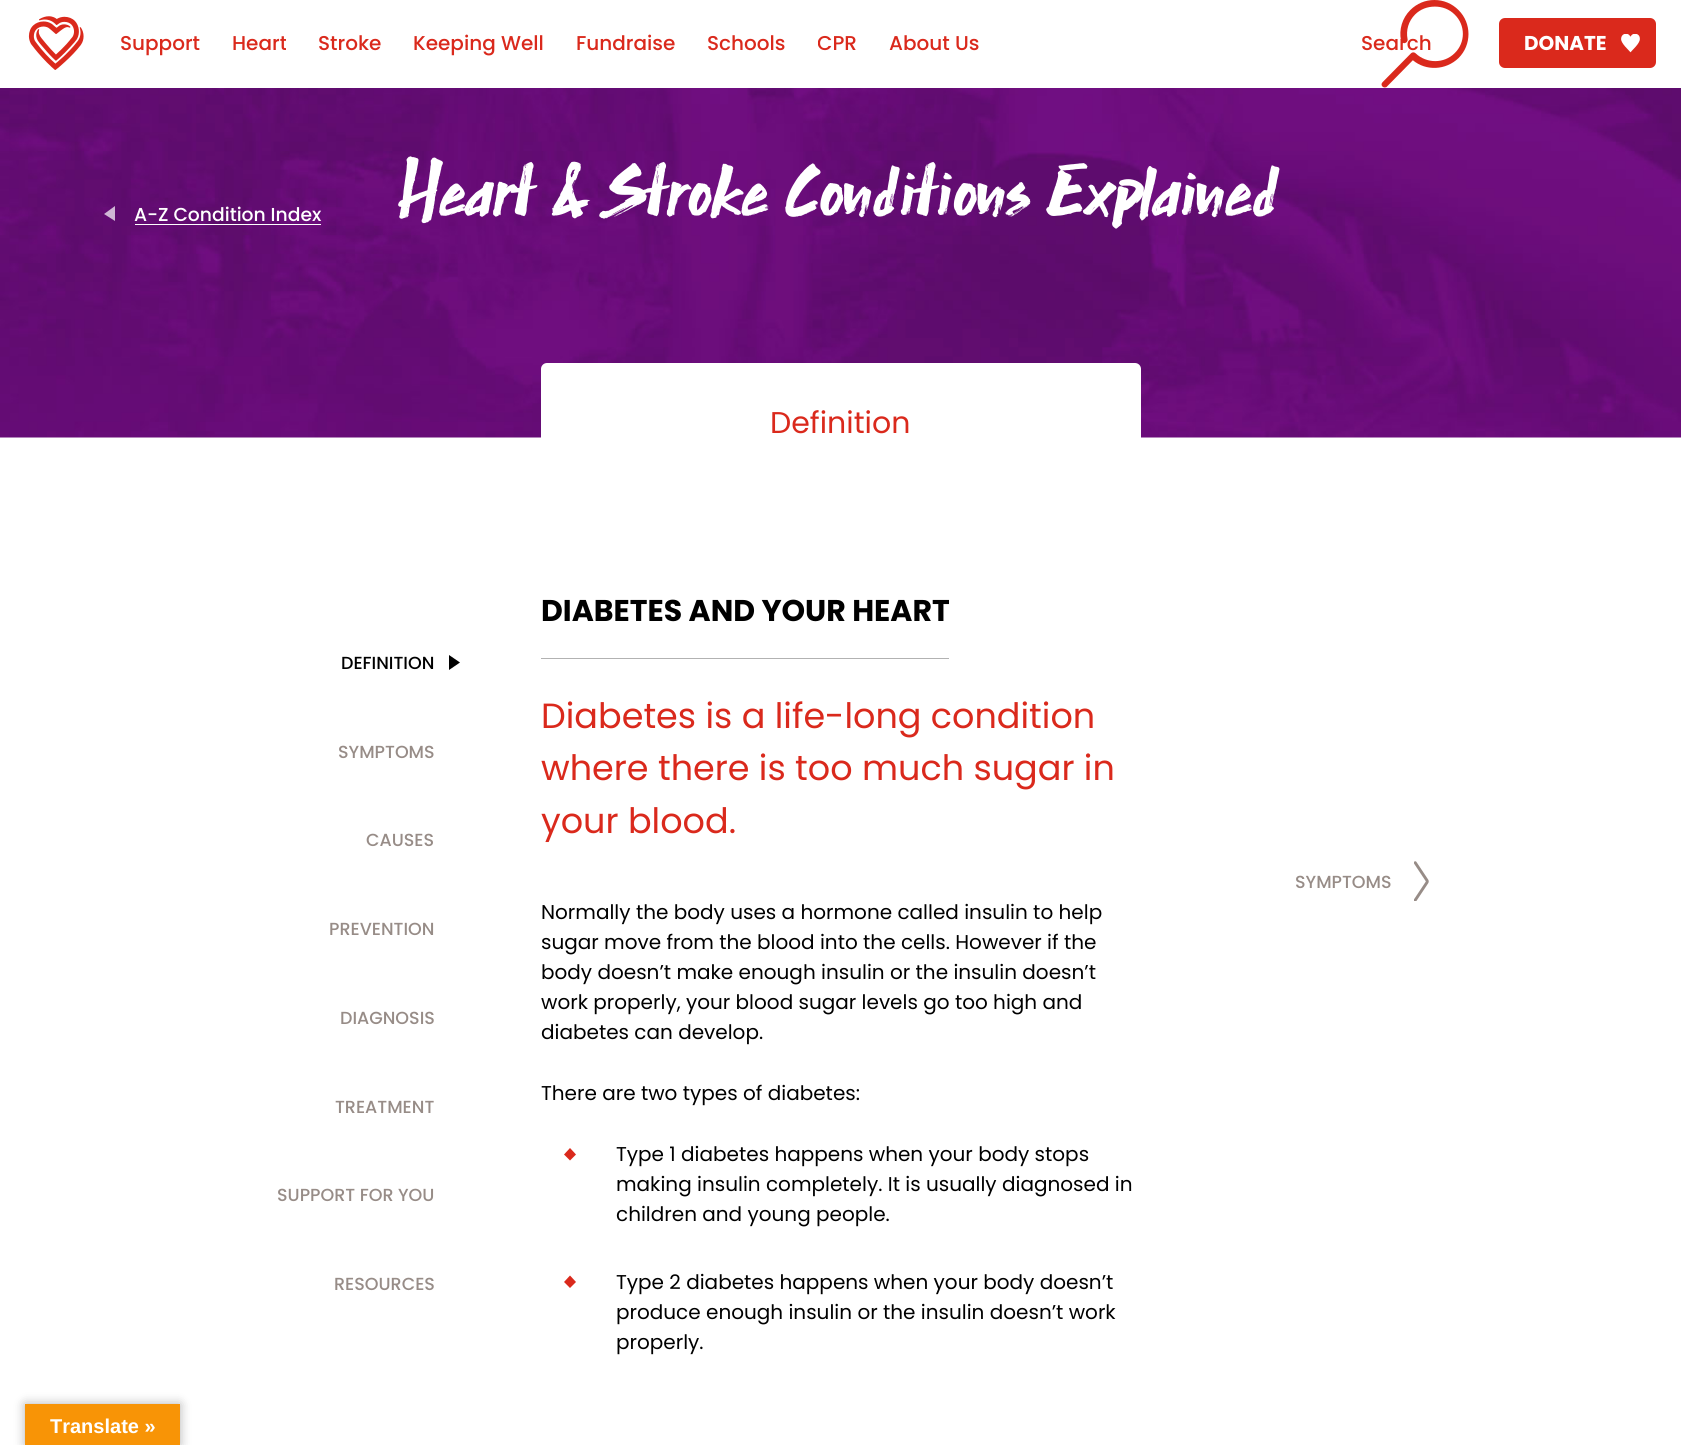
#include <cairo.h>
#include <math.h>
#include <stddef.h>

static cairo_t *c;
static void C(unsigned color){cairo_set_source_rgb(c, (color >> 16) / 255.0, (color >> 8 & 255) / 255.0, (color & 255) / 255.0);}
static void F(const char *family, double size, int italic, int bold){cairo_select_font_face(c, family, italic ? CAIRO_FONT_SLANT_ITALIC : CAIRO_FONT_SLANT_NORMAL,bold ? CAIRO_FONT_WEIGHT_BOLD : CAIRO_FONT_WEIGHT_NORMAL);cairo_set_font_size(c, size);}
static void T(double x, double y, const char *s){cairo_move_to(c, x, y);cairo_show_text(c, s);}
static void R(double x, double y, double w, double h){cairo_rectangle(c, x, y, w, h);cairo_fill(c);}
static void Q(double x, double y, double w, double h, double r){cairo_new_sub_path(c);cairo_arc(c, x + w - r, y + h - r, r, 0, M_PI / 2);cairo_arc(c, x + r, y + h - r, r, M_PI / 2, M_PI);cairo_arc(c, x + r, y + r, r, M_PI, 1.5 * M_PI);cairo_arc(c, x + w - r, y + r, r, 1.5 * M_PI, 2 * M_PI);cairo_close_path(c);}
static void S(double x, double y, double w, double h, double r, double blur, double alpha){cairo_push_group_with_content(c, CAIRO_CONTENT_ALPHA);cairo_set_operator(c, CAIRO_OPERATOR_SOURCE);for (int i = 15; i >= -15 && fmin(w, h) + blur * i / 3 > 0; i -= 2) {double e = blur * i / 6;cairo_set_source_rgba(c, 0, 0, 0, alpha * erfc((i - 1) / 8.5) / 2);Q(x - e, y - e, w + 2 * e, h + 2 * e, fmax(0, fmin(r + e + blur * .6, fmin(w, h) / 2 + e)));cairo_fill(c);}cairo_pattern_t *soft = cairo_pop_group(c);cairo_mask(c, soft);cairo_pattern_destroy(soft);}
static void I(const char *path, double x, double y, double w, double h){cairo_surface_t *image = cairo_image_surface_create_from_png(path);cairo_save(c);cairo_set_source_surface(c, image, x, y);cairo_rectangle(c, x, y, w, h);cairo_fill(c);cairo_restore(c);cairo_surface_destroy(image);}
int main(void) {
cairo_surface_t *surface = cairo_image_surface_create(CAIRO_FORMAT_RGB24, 1681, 1445);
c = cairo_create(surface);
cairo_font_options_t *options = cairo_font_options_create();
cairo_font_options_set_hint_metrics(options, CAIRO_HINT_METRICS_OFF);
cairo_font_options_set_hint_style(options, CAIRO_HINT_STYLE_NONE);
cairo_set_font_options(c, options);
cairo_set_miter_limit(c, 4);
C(0xffffff);
cairo_paint(c);
I("1.png",28,16,56,54);
F("Poppins Medium",20,0,0);
C(0xda291c);
T(120,50,"Support");
cairo_save(c);
cairo_rectangle(c,231,0,55,88);
cairo_clip(c);
T(232,50,"Heart");
cairo_restore(c);
T(318,50,"Stroke");
T(413,50,"Keeping Well");
T(576,50,"Fundraise");
T(707,50,"Schools");
cairo_save(c);
cairo_rectangle(c,818,0,40,88);
cairo_clip(c);
T(817,50,"CPR");
cairo_restore(c);
T(889,50,"About Us");
I("2.png",1381,0,88,88);
T(1361,50,"Search");
Q(1499,18,157,50,6);
cairo_fill(c);
F("Poppins",20,0,1);
C(0xffffff);
T(1524,50,"DONATE");
I("3.png",1621,34,19,19);
I("4.png",0,88,1681,350);
cairo_set_source_rgba(c,1,1,1,0.7);
cairo_new_path(c);
cairo_move_to(c,115,206);
cairo_line_to(c,115,221);
cairo_line_to(c,104,214);
cairo_close_path(c);
cairo_fill(c);
F("Poppins Medium",18.75,0,0);
C(0xffffff);
T(134,221,"A-Z Condition Index");
R(135,224,186,1);
F("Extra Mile",75,0,0);
T(401,213,"Heart & Stroke Conditions Explained");
F("Poppins Medium",17.5,0,0);
C(0x000000);
T(341,669,"DEFINITION");
cairo_new_path(c);
cairo_move_to(c,449,670);
cairo_line_to(c,449,655);
cairo_line_to(c,460,662.5);
cairo_close_path(c);
cairo_fill(c);
C(0x978c87);
T(338,758,"SYMPTOMS");
T(366,846,"CAUSES");
T(329,935,"PREVENTION");
T(340,1024,"DIAGNOSIS");
T(335,1113,"TREATMENT");
T(277,1201,"SUPPORT FOR YOU");
T(334,1290,"RESOURCES");
C(0xffffff);
Q(541,363,600,120,6);
cairo_fill(c);
F("Poppins",30,0,0);
C(0xda291c);
T(770,433,"Definition");
F("Poppins",30,0,1);
C(0x000000);
T(541,621,"DIABETES AND YOUR HEART");
C(0xb2b2b2);
R(541,658,408,1);
F("Poppins",35,0,0);
C(0xda291c);
T(541,728,"Diabetes is a life-long condition");
T(541,780,"where there is too much sugar in");
T(541,833,"your blood.");
F("Poppins",20,0,0);
C(0x000000);
T(541,919,"Normally the body uses a hormone called insulin to help");
T(541,949,"sugar move from the blood into the cells. However if the");
T(541,979,"body doesn’t make enough insulin or the insulin doesn’t");
T(541,1009,"work properly, your blood sugar levels go too high and");
T(541,1039,"diabetes can develop.");
T(541,1100,"There are two types of diabetes:");
C(0xda291c);
cairo_new_path(c);
cairo_move_to(c,570,1148);
cairo_line_to(c,576,1154.5);
cairo_line_to(c,570,1160.5);
cairo_line_to(c,564,1154.5);
cairo_close_path(c);
cairo_fill(c);
C(0x000000);
T(616,1161,"Type 1 diabetes happens when your body stops");
T(616,1191,"making insulin completely. It is usually diagnosed in");
T(616,1221,"children and young people.");
C(0xda291c);
cairo_new_path(c);
cairo_move_to(c,570,1275.5);
cairo_line_to(c,576,1282);
cairo_line_to(c,570,1288);
cairo_line_to(c,564,1282);
cairo_close_path(c);
cairo_fill(c);
C(0x000000);
T(616,1289,"Type 2 diabetes happens when your body doesn’t");
T(616,1319,"produce enough insulin or the insulin doesn’t work");
T(616,1349,"properly.");
F("Poppins Medium",17.5,0,0);
C(0x978c87);
T(1295,888,"SYMPTOMS");
I("5.png",1414,861,15,40);
C(0x000000);
S(25,1404,155,41,0,5.5,.3);
C(0xf89406);
R(25,1404,155,41);
F("Liberation Sans",20,0,1);
C(0xffffff);
T(50,1433,"Translate »");
cairo_surface_write_to_png(surface, "o.png");
cairo_font_options_destroy(options);
cairo_destroy(c);
cairo_surface_destroy(surface);
return 0;
}
